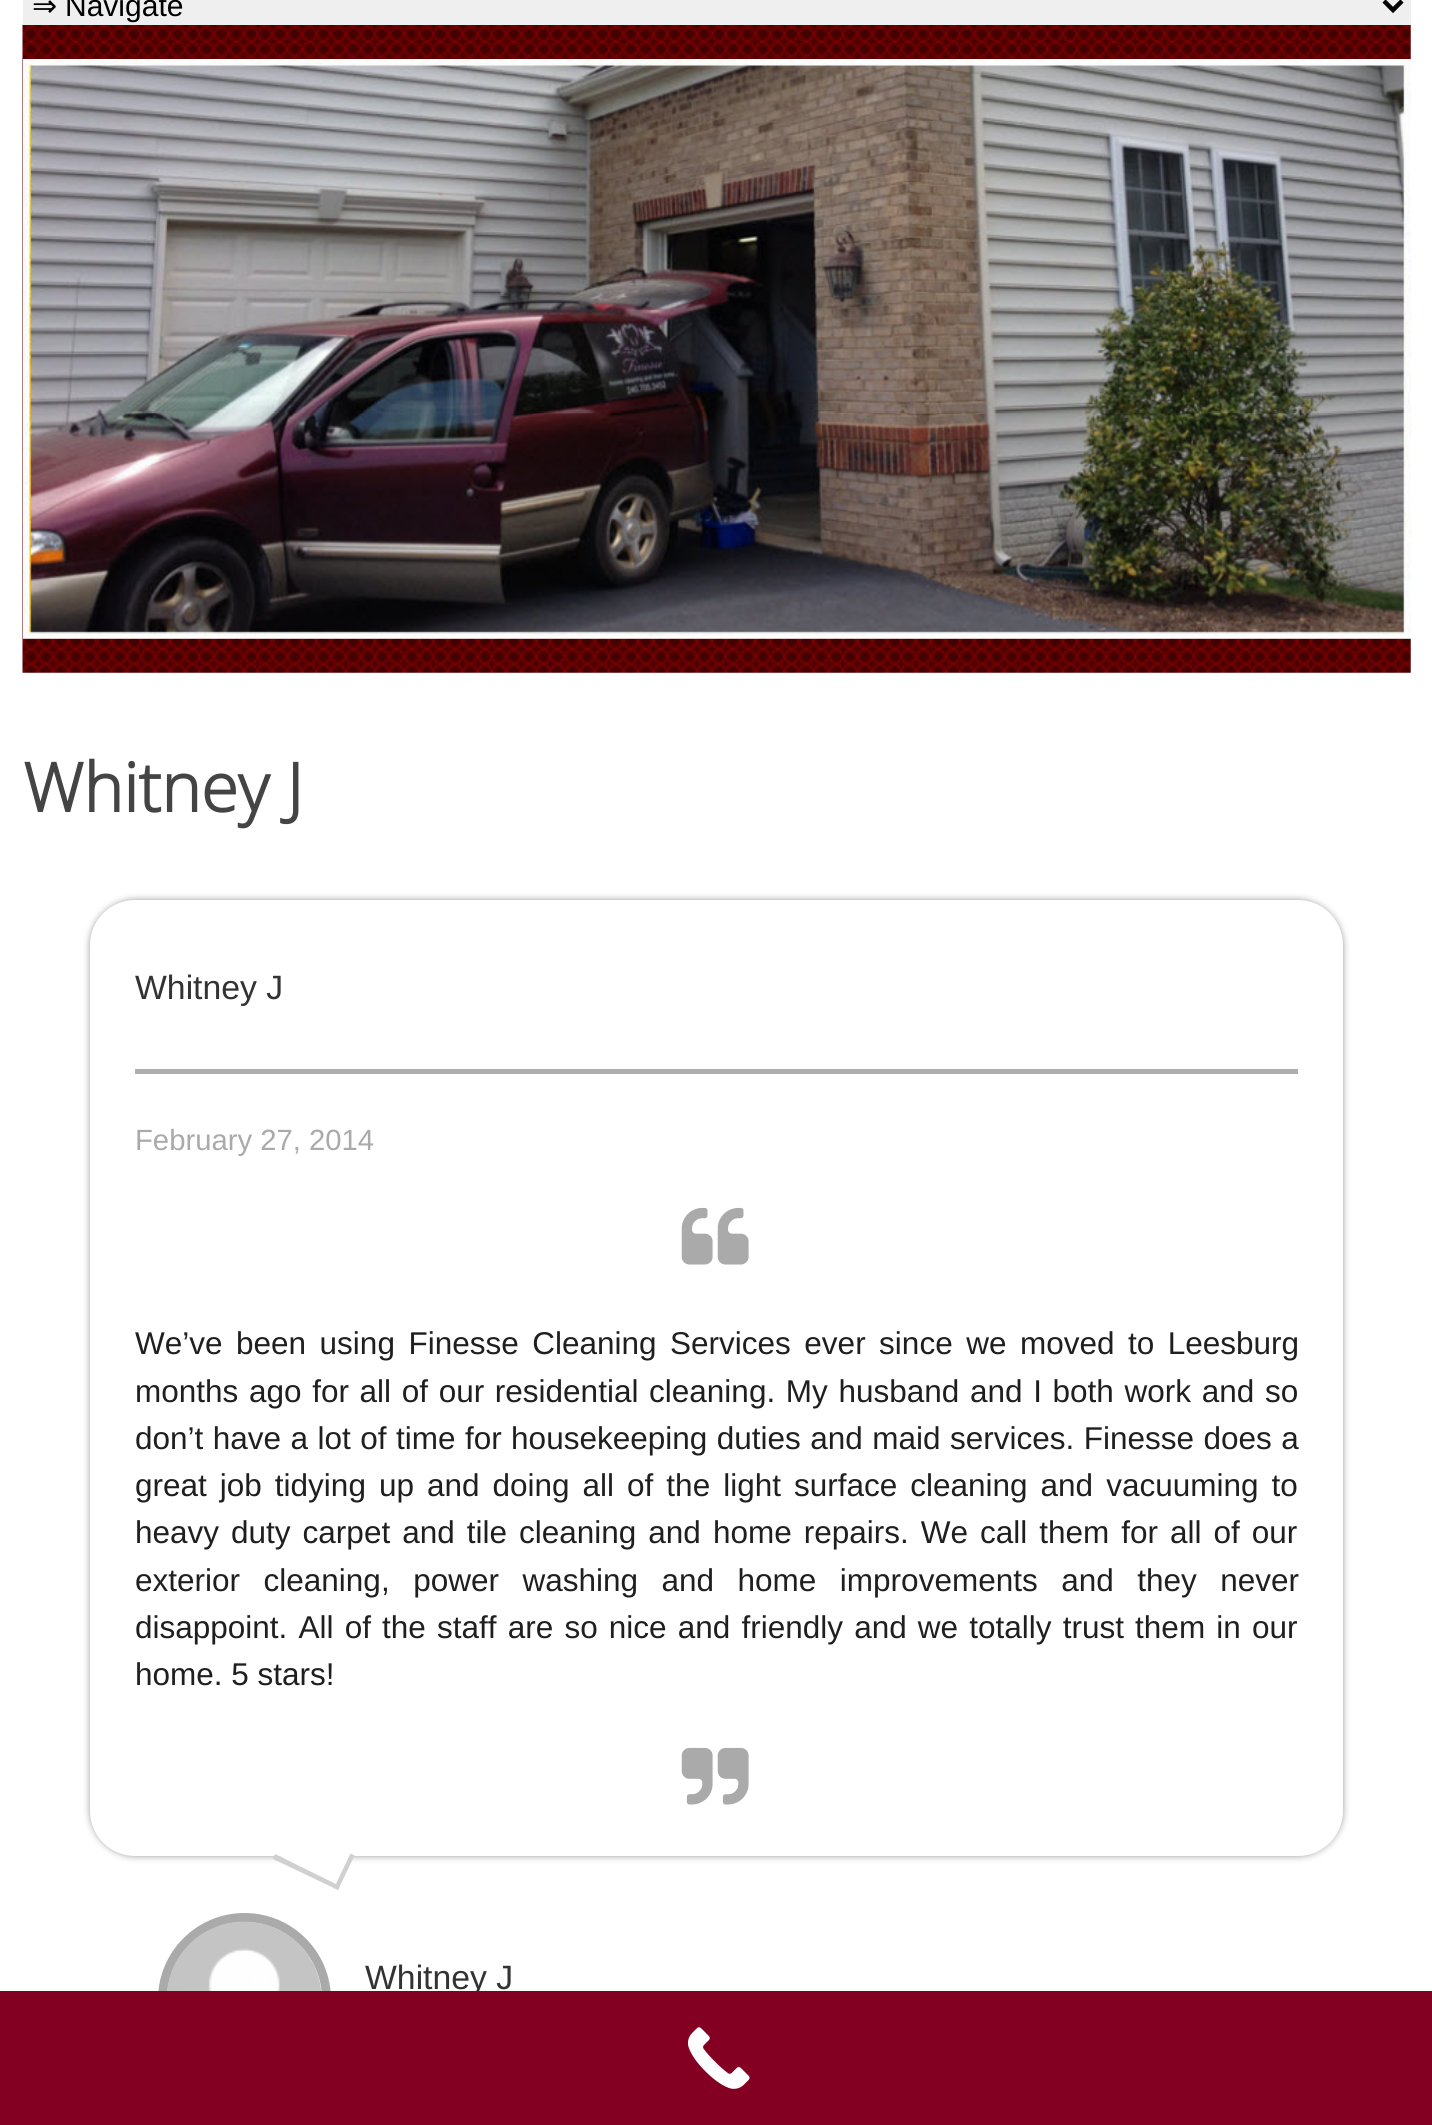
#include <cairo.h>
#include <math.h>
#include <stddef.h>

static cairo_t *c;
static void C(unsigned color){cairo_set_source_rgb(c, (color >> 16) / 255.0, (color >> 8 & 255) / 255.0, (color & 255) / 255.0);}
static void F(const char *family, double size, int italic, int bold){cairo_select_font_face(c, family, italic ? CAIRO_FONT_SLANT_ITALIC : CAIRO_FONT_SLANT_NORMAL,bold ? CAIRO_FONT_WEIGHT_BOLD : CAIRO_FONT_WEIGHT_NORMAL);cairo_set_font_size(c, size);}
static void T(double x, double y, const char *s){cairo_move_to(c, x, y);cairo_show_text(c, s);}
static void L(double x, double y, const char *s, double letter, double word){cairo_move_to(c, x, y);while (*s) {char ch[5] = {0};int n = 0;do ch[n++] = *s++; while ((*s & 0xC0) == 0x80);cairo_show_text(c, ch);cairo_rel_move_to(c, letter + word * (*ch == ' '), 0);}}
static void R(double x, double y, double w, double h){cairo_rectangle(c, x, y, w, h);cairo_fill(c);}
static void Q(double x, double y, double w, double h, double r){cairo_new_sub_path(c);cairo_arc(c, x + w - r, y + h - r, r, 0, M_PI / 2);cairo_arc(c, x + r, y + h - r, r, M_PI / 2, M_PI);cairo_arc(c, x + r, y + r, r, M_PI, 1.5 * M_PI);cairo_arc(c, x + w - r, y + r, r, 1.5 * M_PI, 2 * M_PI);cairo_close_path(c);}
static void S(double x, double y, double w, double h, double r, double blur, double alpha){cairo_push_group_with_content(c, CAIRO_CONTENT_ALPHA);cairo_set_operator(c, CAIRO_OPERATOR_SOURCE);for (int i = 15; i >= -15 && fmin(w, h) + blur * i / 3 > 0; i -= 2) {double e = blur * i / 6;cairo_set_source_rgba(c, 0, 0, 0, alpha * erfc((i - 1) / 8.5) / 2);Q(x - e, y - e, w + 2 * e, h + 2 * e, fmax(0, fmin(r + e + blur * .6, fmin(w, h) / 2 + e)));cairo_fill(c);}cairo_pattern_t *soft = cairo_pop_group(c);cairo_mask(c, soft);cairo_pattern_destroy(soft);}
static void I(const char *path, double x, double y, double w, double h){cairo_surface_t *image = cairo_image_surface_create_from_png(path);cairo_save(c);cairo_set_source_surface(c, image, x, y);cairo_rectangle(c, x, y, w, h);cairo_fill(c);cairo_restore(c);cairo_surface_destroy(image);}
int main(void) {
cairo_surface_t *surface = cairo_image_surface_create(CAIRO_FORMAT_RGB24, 1432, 2125);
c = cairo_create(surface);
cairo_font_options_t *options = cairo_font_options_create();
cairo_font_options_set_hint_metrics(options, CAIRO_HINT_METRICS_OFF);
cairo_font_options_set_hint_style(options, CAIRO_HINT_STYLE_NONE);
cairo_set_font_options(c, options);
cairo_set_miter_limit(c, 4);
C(0xffffff);
cairo_paint(c);
I("1.png",22,24,1389,649);
C(0xefefef);
R(23,0,1388,25);
cairo_new_path(c);
cairo_move_to(c,1384,1);
cairo_line_to(c,1393,10);
cairo_line_to(c,1402,1);
C(0x000000);
cairo_set_line_width(c,4.5);
cairo_stroke(c);
F("DejaVu Sans",30,0,0);
T(32,16,"⇒");
F("Liberation Sans",30,0,0);
T(65,16,"Navigate");
I("2.png",23,59,1388,580);
F("Open Sans",67.5,0,1);
C(0x444444);
T(23,812,"Whitney J");
C(0x999999);
S(90,900,1253,956,45,3.5,1);
C(0xffffff);
Q(90,900,1253,956,45);
cairo_fill(c);
F("Liberation Sans",33.75,0,0);
C(0x333333);
T(135,999,"Whitney J");
C(0xaeaeae);
R(135,1069,1163,5);
F("Liberation Sans",29.25,0,0);
C(0xaaaaaa);
T(135,1150,"February 27, 2014");
I("3.png",681,1207,68,58);
F("Liberation Sans",31.5,0,0);
C(0x1f1f1f);
L(135,1354,"We’ve been using Finesse Cleaning Services ever since we moved to Leesburg",0,4.75);
L(135,1402,"months ago for all of our residential cleaning. My husband and I both work and so",0,1.9);
L(135,1449,"don’t have a lot of time for housekeeping duties and maid services. Finesse does a",0,.7);
L(135,1496,"great job tidying up and doing all of the light surface cleaning and vacuuming to",0,4.25);
L(135,1543,"heavy duty carpet and tile cleaning and home repairs. We call them for all of our",0,3.25);
L(135,1591,"exterior cleaning, power washing and home improvements and they never",0,14.75);
L(135,1638,"disappoint. All of the staff are so nice and friendly and we totally trust them in our",0,2.4);
T(135,1685,"home. 5 stars!");
I("4.png",681,1747,68,58);
C(0xffffff);
cairo_new_path(c);
cairo_move_to(c,290,1824);
cairo_line_to(c,351,1854);
cairo_line_to(c,336,1884);
cairo_line_to(c,275,1854);
cairo_close_path(c);
cairo_fill(c);
C(0xd0d0d0);
cairo_new_path(c);
cairo_move_to(c,350.5,1853.5);
cairo_line_to(c,354.5,1855.5);
cairo_line_to(c,338,1890);
cairo_line_to(c,334,1888);
cairo_close_path(c);
cairo_fill(c);
cairo_new_path(c);
cairo_move_to(c,275,1854);
cairo_line_to(c,340,1886);
cairo_line_to(c,338,1890);
cairo_line_to(c,273,1859);
cairo_close_path(c);
cairo_fill(c);
cairo_arc(c,244.5,1999.5,82,0,2 * M_PI);
C(0xaaaaaa);
cairo_set_line_width(c,9);
cairo_stroke(c);
I("5.png",167,1921,155,70);
F("Liberation Sans",33.75,0,0);
C(0x333333);
T(365,1989,"Whitney J");
C(0x840023);
R(0,1991,1432,134);
I("6.png",688,2027,62,62);
cairo_surface_write_to_png(surface, "o.png");
cairo_font_options_destroy(options);
cairo_destroy(c);
cairo_surface_destroy(surface);
return 0;
}
